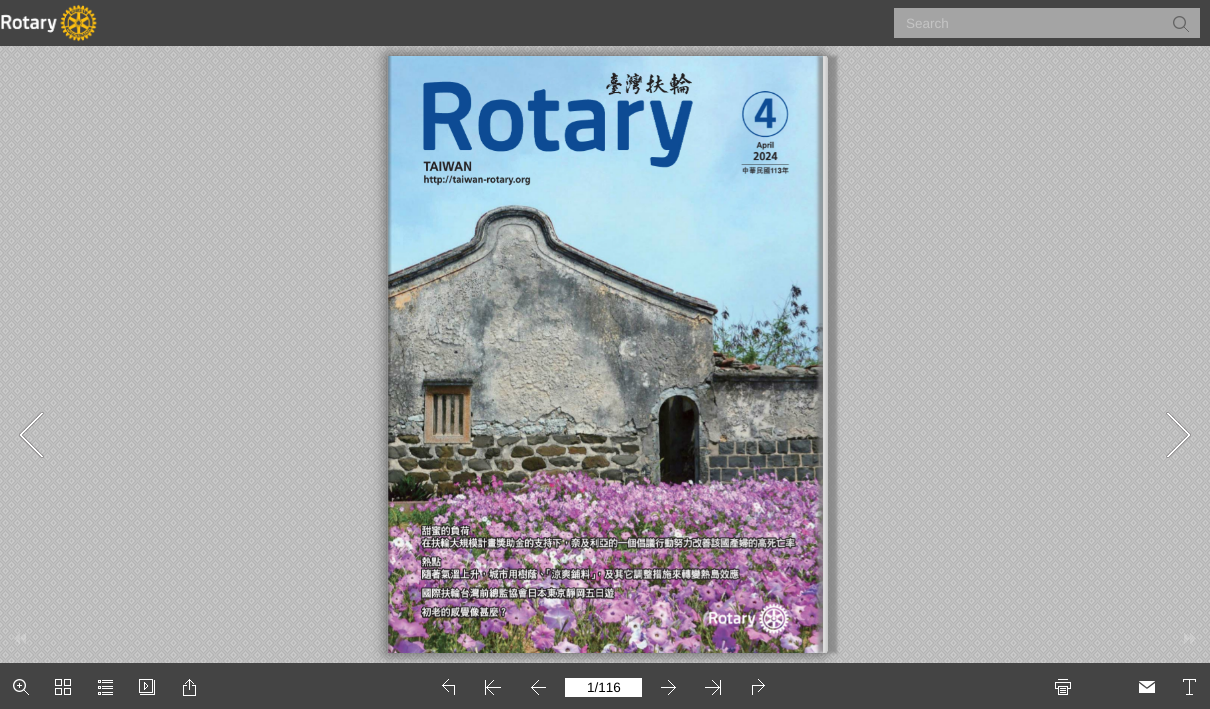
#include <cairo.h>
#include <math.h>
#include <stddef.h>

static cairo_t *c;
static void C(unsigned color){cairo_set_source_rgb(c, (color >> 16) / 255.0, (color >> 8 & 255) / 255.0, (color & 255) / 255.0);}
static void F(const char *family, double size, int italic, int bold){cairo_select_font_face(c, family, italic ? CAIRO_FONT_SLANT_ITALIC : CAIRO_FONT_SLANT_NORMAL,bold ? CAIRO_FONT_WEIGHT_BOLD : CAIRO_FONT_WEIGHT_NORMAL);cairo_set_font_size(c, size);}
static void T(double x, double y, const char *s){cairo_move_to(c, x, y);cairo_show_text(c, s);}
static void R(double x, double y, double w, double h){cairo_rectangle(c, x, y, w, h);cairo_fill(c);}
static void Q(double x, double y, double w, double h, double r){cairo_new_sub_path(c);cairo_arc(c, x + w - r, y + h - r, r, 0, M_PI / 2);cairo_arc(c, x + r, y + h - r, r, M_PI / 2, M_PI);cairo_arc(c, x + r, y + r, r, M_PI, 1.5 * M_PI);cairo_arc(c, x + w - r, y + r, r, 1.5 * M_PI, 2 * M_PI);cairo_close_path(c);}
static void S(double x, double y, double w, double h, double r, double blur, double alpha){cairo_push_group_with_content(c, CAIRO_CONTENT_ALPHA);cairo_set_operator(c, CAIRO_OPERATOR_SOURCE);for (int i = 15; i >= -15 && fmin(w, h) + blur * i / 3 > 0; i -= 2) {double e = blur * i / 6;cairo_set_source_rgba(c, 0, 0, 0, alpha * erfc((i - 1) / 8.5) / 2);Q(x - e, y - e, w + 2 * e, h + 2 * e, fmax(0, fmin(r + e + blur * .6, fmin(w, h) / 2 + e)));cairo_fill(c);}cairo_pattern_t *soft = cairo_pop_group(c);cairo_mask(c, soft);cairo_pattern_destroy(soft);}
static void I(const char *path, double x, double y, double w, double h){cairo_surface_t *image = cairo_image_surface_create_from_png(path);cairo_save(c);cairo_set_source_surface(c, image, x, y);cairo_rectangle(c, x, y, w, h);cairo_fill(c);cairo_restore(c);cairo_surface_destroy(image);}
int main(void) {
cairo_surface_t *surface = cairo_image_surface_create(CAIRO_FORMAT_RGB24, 1210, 709);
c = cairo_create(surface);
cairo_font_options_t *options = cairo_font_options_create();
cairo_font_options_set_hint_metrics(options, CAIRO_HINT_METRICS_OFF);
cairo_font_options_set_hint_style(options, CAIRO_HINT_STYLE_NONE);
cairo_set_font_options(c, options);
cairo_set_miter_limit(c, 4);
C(0xffffff);
cairo_paint(c);
I("8.png",0,46,1210,617);
C(0x282828);
S(387,56,436,597,0,7.5,.7);
C(0x444444);
R(0,0,1210,46);
I("1.png",1,4,96,38);
C(0xa4a4a4);
R(894,8,306,30);
F("Liberation Sans",13.5,0,0);
C(0xc4c4c4);
T(906,28,"Search");
I("2.png",1173,16,16,16);
I("5.png",822,56,1,597);
I("6.png",822,56,1,597);
I("7.png",822,56,1,597);
I("3.png",387,56,436,597);
C(0x7d7d7d);
S(818,56,19,597,0,1.5,.7);
C(0xcccccc);
R(823,56,4,597);
I("4.png",823,56,5,597);
I("9.png",19,412,25,46);
I("10.png",1166,412,25,46);
I("11.png",14,633,12,11);
I("12.png",1184,633,12,11);
C(0x444444);
R(0,663,1210,46);
I("13.png",13,679,16,16);
I("14.png",55,679,16,16);
I("15.png",98,680,15,15);
I("16.png",139,679,16,16);
I("17.png",183,679,13,17);
I("18.png",442,679,13,16);
I("19.png",485,680,16,15);
I("20.png",531,680,15,15);
C(0xffffff);
R(565,678,77,19);
C(0x000000);
T(587,692,"1/116");
I("21.png",661,680,15,15);
I("22.png",705,680,16,15);
I("23.png",752,679,13,16);
I("24.png",1055,679,16,16);
I("25.png",1139,681,16,12);
I("26.png",1183,679,13,16);
cairo_surface_write_to_png(surface, "o.png");
cairo_font_options_destroy(options);
cairo_destroy(c);
cairo_surface_destroy(surface);
return 0;
}
